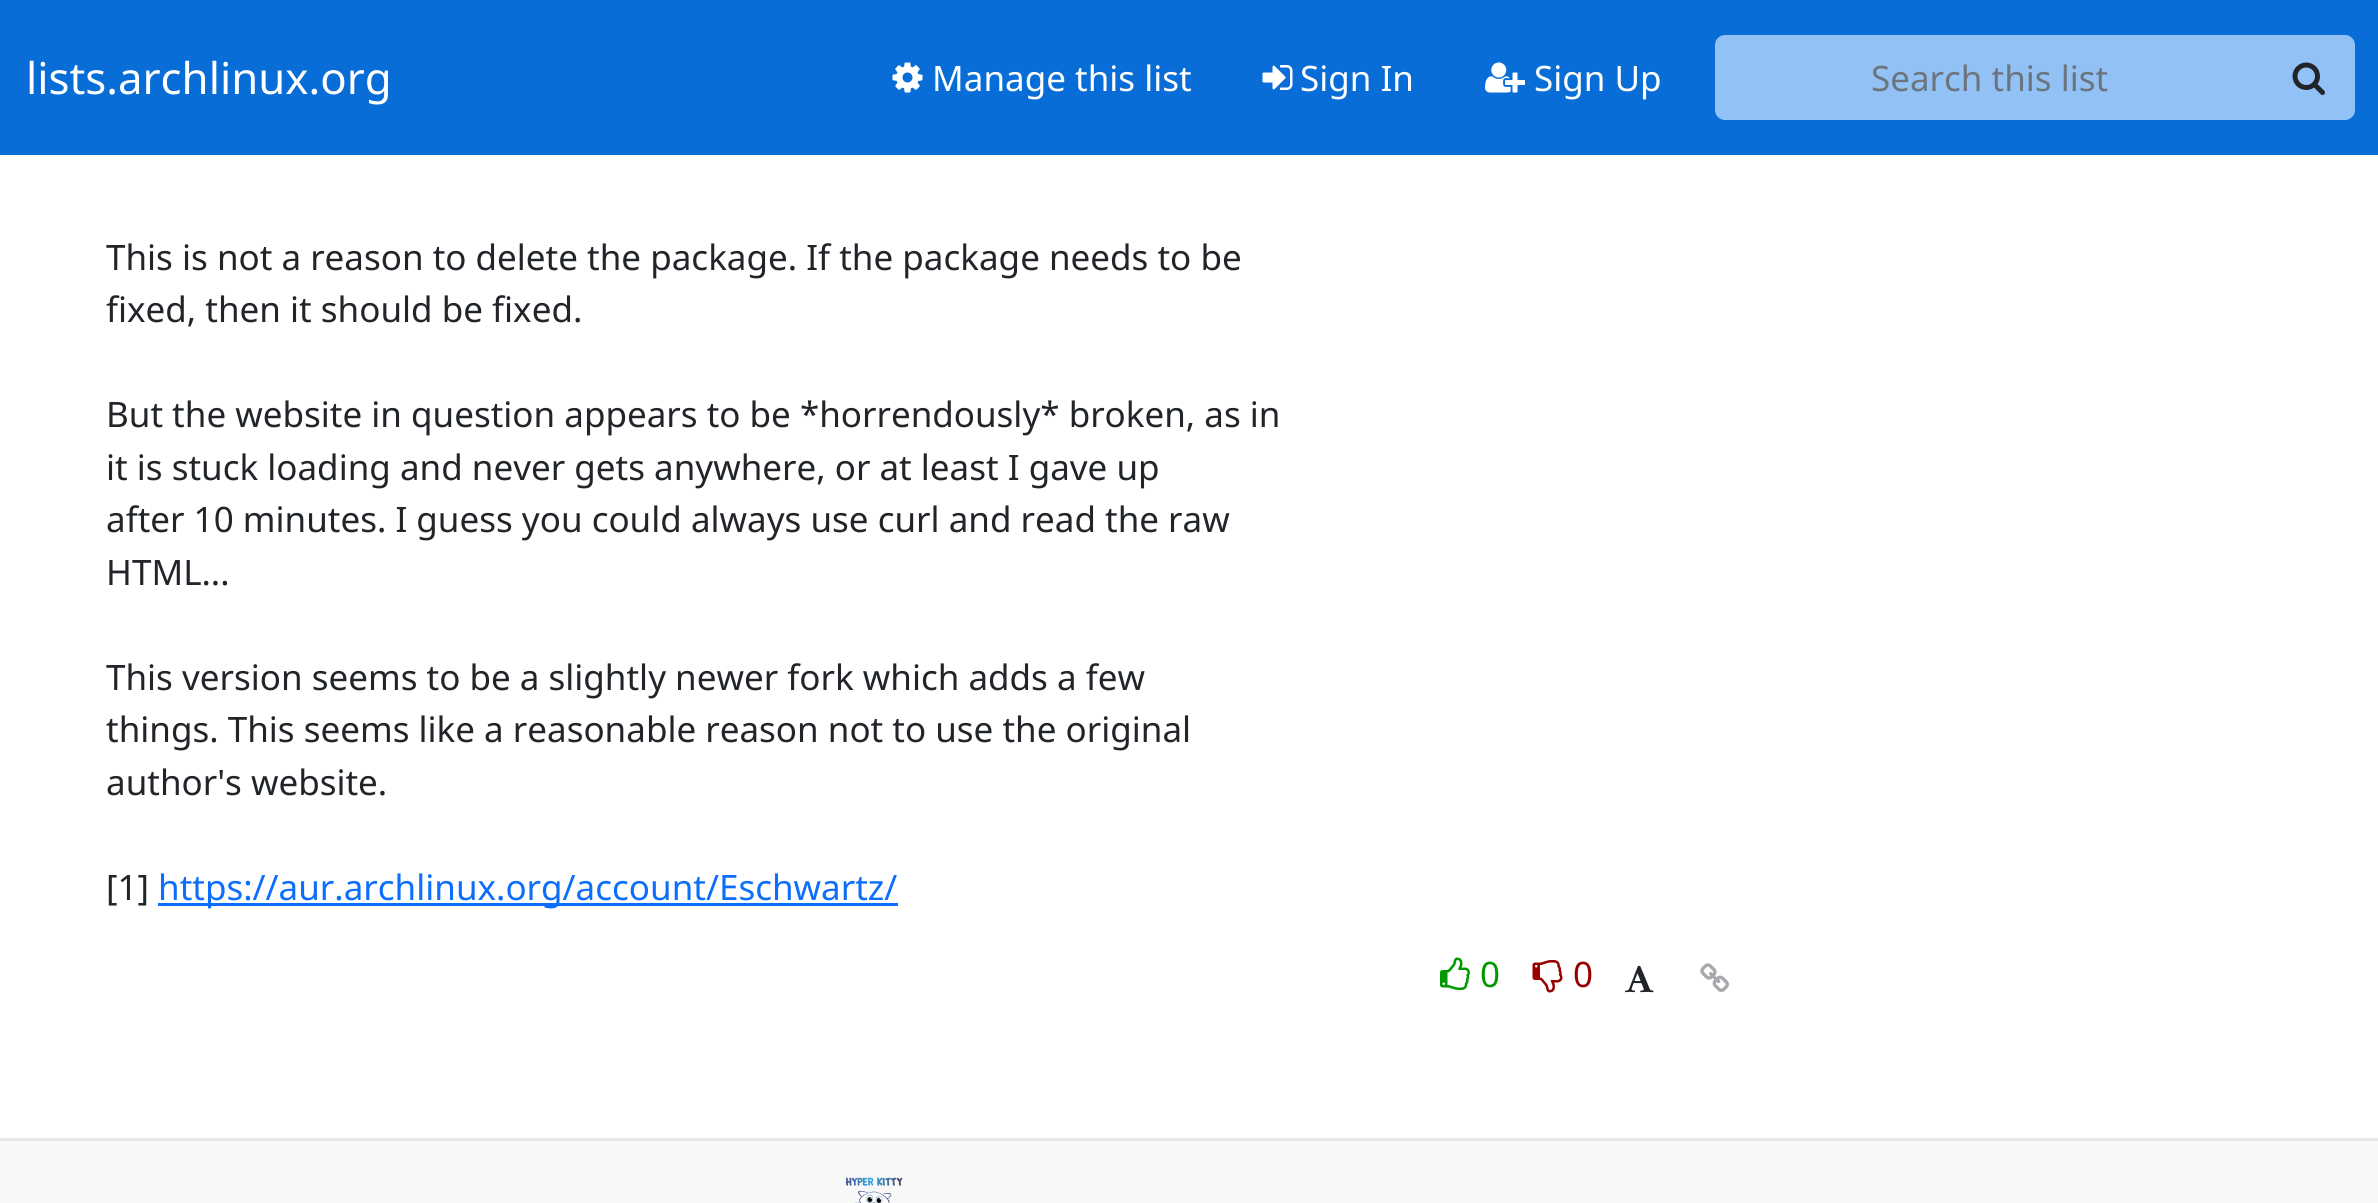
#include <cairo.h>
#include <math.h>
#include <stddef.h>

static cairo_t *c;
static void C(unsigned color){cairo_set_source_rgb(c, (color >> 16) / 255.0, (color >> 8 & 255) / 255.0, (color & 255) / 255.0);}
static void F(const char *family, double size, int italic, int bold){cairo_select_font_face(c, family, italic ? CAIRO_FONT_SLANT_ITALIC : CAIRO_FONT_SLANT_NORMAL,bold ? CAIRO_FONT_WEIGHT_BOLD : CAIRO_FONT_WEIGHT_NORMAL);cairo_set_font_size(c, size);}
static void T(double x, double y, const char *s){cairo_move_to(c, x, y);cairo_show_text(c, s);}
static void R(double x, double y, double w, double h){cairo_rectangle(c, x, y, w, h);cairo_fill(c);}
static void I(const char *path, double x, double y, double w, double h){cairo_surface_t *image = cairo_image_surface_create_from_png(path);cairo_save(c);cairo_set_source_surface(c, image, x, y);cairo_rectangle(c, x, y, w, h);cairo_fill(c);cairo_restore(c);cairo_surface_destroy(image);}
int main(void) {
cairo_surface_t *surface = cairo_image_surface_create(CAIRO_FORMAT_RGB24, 2378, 1203);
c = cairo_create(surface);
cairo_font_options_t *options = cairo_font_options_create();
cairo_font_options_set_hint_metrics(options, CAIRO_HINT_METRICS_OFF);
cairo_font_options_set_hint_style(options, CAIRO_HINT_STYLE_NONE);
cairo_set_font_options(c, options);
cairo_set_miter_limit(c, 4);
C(0xffffff);
cairo_paint(c);
C(0x086dd7);
R(0,0,2378,155);
F("Noto Sans",43.75,0,0);
C(0xffffff);
T(26,94,"lists.archlinux.org");
I("1.png",892,62,31,31);
F("Noto Sans",35,0,0);
T(932,91,"Manage this list");
I("2.png",1262,65,31,25);
T(1300,91,"Sign In");
I("3.png",1485,62,40,31);
T(1534,91,"Sign Up");
C(0x92c2f5);
cairo_new_path(c);
cairo_move_to(c,1725,35);
cairo_line_to(c,2268,35);
cairo_line_to(c,2268,120);
cairo_line_to(c,1725,120);
cairo_curve_to(c,1719.5,120,1715,115.5,1715,110);
cairo_line_to(c,1715,45);
cairo_curve_to(c,1715,39.5,1719.5,35,1725,35);
cairo_close_path(c);
cairo_fill(c);
C(0x6c757d);
T(1871,91,"Search this list");
C(0x92c2f5);
cairo_new_path(c);
cairo_move_to(c,2265,35);
cairo_line_to(c,2345,35);
cairo_curve_to(c,2350.5,35,2355,39.5,2355,45);
cairo_line_to(c,2355,110);
cairo_curve_to(c,2355,115.5,2350.5,120,2345,120);
cairo_line_to(c,2265,120);
cairo_close_path(c);
cairo_fill(c);
I("4.png",2292,62,33,33);
C(0x212529);
T(106,270,"This is not a reason to delete the package. If the package needs to be");
T(106,322,"fixed, then it should be fixed.");
T(106,427,"But the website in question appears to be *horrendously* broken, as in");
T(106,480,"it is stuck loading and never gets anywhere, or at least I gave up");
T(106,532,"after 10 minutes. I guess you could always use curl and read the raw");
T(106,585,"HTML...");
T(106,690,"This version seems to be a slightly newer fork which adds a few");
T(106,742,"things. This seems like a reasonable reason not to use the original");
T(106,795,"author's website.");
T(106,900,"[1]");
C(0x0d6efd);
R(158,903,740,3);
T(158,900,"https://aur.archlinux.org/account/Eschwartz/");
I("5.png",1440,957,30,33);
C(0x009900);
T(1480,987,"0");
I("6.png",1532,960,31,33);
C(0x990000);
T(1573,987,"0");
I("7.png",1625,965,29,28);
I("8.png",1700,963,29,29);
C(0xf8f8f8);
R(0,1141,2378,62);
C(0xe7e7e7);
R(0,1138,2378,3);
I("9.png",845,1177,58,26);
cairo_surface_write_to_png(surface, "o.png");
cairo_font_options_destroy(options);
cairo_destroy(c);
cairo_surface_destroy(surface);
return 0;
}
